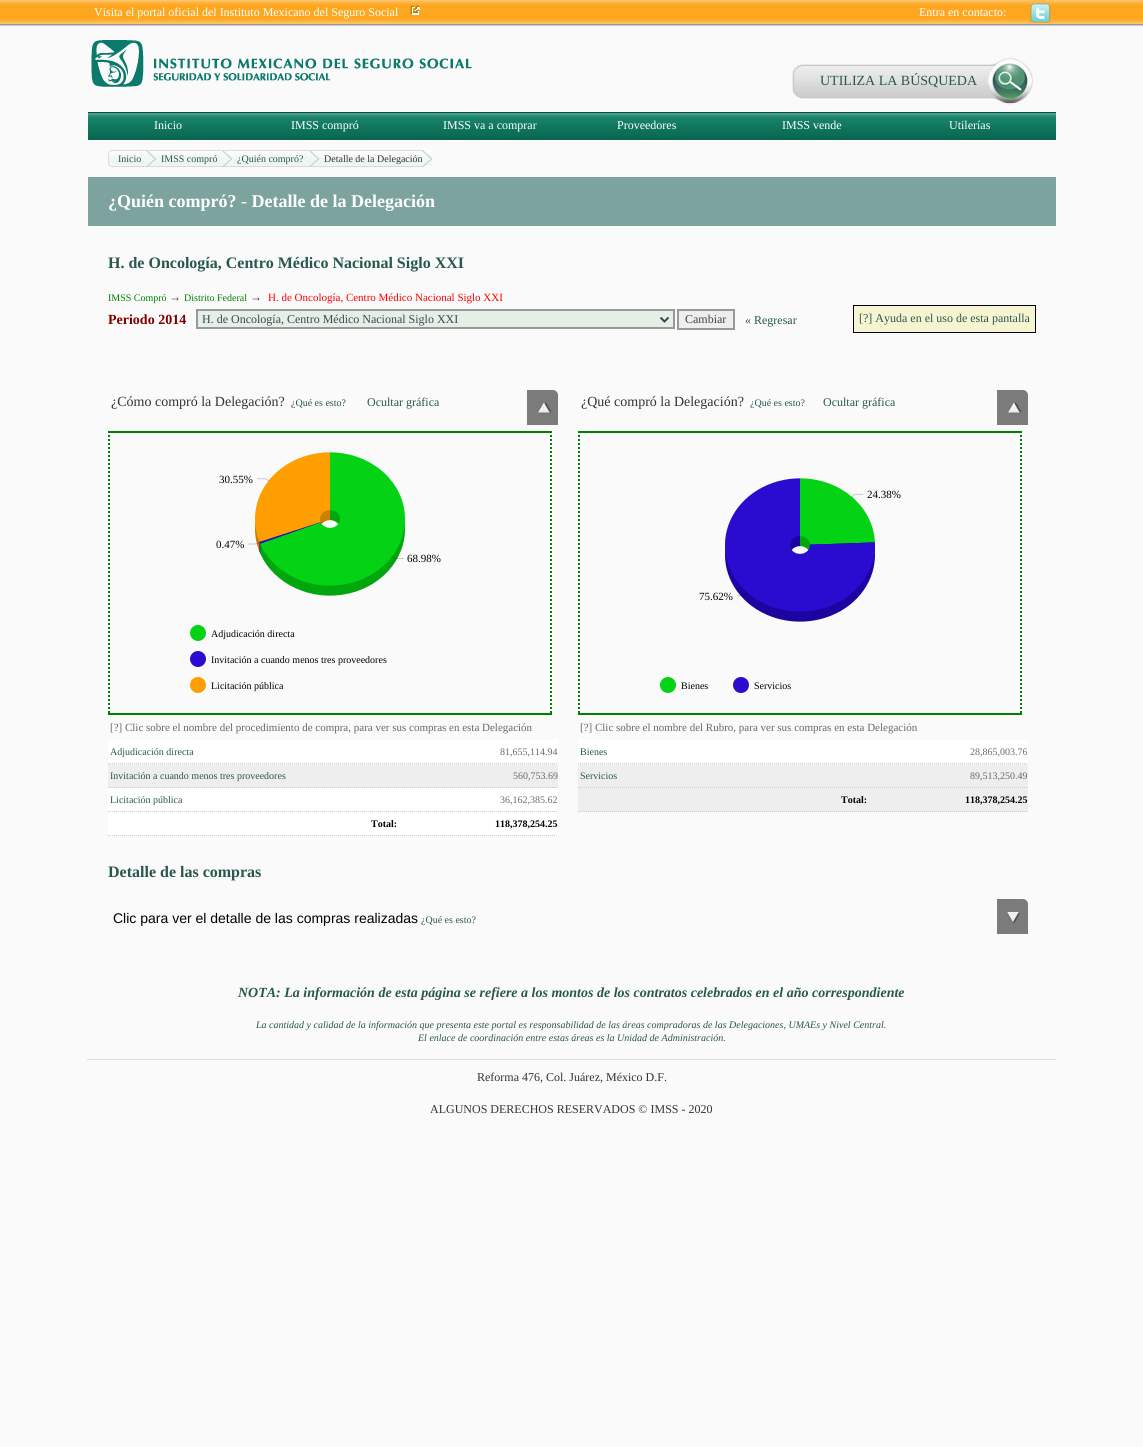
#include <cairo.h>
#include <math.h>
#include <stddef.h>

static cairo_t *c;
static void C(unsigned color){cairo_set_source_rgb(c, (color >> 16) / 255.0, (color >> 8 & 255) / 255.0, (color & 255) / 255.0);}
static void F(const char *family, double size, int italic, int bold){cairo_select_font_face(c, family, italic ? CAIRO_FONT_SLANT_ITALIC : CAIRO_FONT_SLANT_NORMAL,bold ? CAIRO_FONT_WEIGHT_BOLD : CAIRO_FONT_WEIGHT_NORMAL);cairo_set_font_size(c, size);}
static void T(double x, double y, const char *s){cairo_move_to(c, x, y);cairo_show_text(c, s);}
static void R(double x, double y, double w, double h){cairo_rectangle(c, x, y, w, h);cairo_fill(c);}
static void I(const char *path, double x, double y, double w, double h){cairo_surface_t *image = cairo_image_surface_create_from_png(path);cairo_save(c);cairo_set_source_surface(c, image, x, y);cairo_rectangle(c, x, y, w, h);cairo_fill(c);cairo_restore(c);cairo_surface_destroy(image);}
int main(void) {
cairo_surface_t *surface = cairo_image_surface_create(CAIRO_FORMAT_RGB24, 1143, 1447);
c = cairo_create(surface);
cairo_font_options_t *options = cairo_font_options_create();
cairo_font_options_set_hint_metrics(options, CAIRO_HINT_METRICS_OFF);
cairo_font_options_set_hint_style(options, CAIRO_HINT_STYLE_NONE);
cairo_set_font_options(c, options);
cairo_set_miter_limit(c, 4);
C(0xfafafa);
cairo_paint(c);
I("1.png",0,0,1143,26);
F("Liberation Serif",12,0,0);
C(0xffffff);
T(94,16,"Visita el portal oficial del Instituto Mexicano del Seguro Social");
I("2.png",410,5,11,11);
T(919,16,"Entra en contacto:");
I("3.png",1030,3,21,20);
I("4.png",91,40,381,47);
I("5.png",790,57,243,48);
F("Liberation Serif",14,0,0);
C(0x28574d);
T(820,85,"UTILIZA LA BÚSQUEDA");
I("6.png",88,112,161,28);
F("Liberation Serif",12,0,0);
C(0xffffff);
T(154,129,"Inicio");
I("6.png",249,112,161,28);
T(291,129,"IMSS compró");
I("6.png",410,112,161,28);
T(443,129,"IMSS va a comprar");
I("6.png",571,112,161,28);
T(617,129,"Proveedores");
I("6.png",732,112,161,28);
T(782,129,"IMSS vende");
I("7.png",893,112,163,28);
T(949,129,"Utilerías");
I("8.png",108,150,10,17);
I("9.png",118,150,23,17);
F("Liberation Serif",10,0,0);
C(0x28574d);
T(118,162,"Inicio");
I("10.png",141,150,20,17);
I("11.png",161,150,56,17);
T(161,162,"IMSS compró");
I("10.png",217,150,20,17);
I("12.png",237,150,67,17);
T(237,162,"¿Quién compró?");
I("10.png",304,150,20,17);
I("13.png",324,150,98,17);
C(0x333333);
T(324,162,"Detalle de la Delegación");
I("14.png",422,150,10,17);
C(0x7ca39e);
R(88,177,968,49);
F("Liberation Serif",18,0,1);
C(0xffffff);
T(108,207,"¿Quién compró? - Detalle de la Delegación");
F("Liberation Serif",16,0,1);
C(0x28574d);
T(108,268,"H. de Oncología, Centro Médico Nacional Siglo XXI");
F("Liberation Serif",10,0,0);
C(0x008000);
T(108,301,"IMSS Compró");
F("Liberation Serif",12,0,0);
C(0x333333);
T(169,301,"→");
F("Liberation Serif",10,0,0);
C(0x008000);
T(184,301,"Distrito Federal");
F("Liberation Serif",12,0,0);
C(0x333333);
T(250,301,"→");
F("Liberation Serif",11,0,0);
C(0xff0000);
T(268,301,"H. de Oncología, Centro Médico Nacional Siglo XXI");
F("Liberation Serif",14,0,1);
C(0x800000);
T(108,324,"Periodo 2014");
C(0xe4efe8);
cairo_rectangle(c,197,310,477,18);
cairo_fill_preserve(c);
C(0x999999);
cairo_stroke(c);
cairo_new_path(c);
cairo_move_to(c,660.5,317.5);
cairo_line_to(c,664.5,321.5);
cairo_line_to(c,668.5,317.5);
C(0x444444);
cairo_stroke(c);
F("Liberation Serif",12,0,0);
T(202,323,"H. de Oncología, Centro Médico Nacional Siglo XXI");
C(0xeeeeee);
cairo_rectangle(c,678,310,56,19);
cairo_fill_preserve(c);
C(0x999999);
cairo_stroke(c);
C(0x444444);
T(685,323,"Cambiar");
C(0x28574d);
T(745,324,"« Regresar");
C(0xf7f5d1);
cairo_rectangle(c,853.5,305.5,182,27);
cairo_fill_preserve(c);
C(0x000000);
cairo_set_line_width(c,1);
cairo_stroke(c);
C(0x28574d);
T(859,322,"[?] Ayuda en el uso de esta pantalla");
F("Liberation Serif",14,0,0);
C(0x333333);
T(111,406,"¿Cómo compró la Delegación?");
F("Liberation Serif",10,0,0);
C(0x28574d);
T(291,406,"¿Qué es esto?");
F("Liberation Serif",12,0,0);
T(367,406,"Ocultar gráfica");
I("15.png",527,390,31,35);
F("Liberation Serif",14,0,0);
C(0x333333);
T(581,406,"¿Qué compró la Delegación?");
F("Liberation Serif",10,0,0);
C(0x28574d);
T(750,406,"¿Qué es esto?");
F("Liberation Serif",12,0,0);
T(823,406,"Ocultar gráfica");
I("15.png",997,390,31,35);
C(0x008000);
R(108,431,444,2);
cairo_new_path(c);
cairo_move_to(c,551,431);
cairo_line_to(c,551,715);
cairo_set_line_width(c,2);
cairo_set_dash(c,(double[]){2,2},2,0);
cairo_stroke(c);
R(108,713,444,2);
cairo_new_path(c);
cairo_move_to(c,109,431);
cairo_line_to(c,109,715);
cairo_stroke(c);
I("16.png",247,452,158,144);
F("Liberation Serif",11,0,0);
C(0x000000);
T(219,483,"30.55%");
T(216,548,"0.47%");
T(407,562,"68.98%");
F("Liberation Serif",10,0,0);
T(211,637,"Adjudicación directa");
C(0x04d215);
cairo_new_path(c);
cairo_arc(c,198,633,8,0,2 * M_PI);
cairo_fill(c);
C(0x000000);
T(211,663,"Invitación a cuando menos tres proveedores");
C(0x2a0cd0);
cairo_new_path(c);
cairo_arc(c,198,659,8,0,2 * M_PI);
cairo_fill(c);
C(0x000000);
T(211,689,"Licitación pública");
C(0xff9e01);
cairo_new_path(c);
cairo_arc(c,198,685,8,0,2 * M_PI);
cairo_fill(c);
F("Liberation Serif",11,0,0);
C(0x696969);
T(110,731,"[?] Clic sobre el nombre del procedimiento de compra, para ver sus compras en esta Delegación");
C(0xffffff);
R(108,740,450,24);
cairo_new_path(c);
cairo_move_to(c,108,763.5);
cairo_line_to(c,558,763.5);
C(0xcccccc);
cairo_set_line_width(c,1);
cairo_set_dash(c,(double[]){1,1},2,0);
cairo_stroke(c);
F("Liberation Serif",10,0,0);
C(0x28574d);
T(110,755,"Adjudicación directa");
C(0x696969);
T(500,755,"81,655,114.94");
C(0xeeeeee);
R(108,764,450,24);
cairo_new_path(c);
cairo_move_to(c,108,787.5);
cairo_line_to(c,558,787.5);
C(0xcccccc);
cairo_stroke(c);
C(0x28574d);
T(110,779,"Invitación a cuando menos tres proveedores");
C(0x696969);
T(513,779,"560,753.69");
C(0xffffff);
R(108,788,450,48);
cairo_new_path(c);
cairo_move_to(c,108,811.5);
cairo_line_to(c,558,811.5);
C(0xcccccc);
cairo_stroke(c);
C(0x28574d);
T(110,803,"Licitación pública");
C(0x696969);
T(500,803,"36,162,385.62");
cairo_new_path(c);
cairo_move_to(c,108,835.5);
cairo_line_to(c,558,835.5);
C(0xcccccc);
cairo_stroke(c);
F("Liberation Serif",10,0,1);
C(0x000000);
T(371,827,"Total:");
T(495,827,"118,378,254.25");
C(0x008000);
R(578,431,444,2);
cairo_new_path(c);
cairo_move_to(c,1021,431);
cairo_line_to(c,1021,715);
cairo_set_line_width(c,2);
cairo_set_dash(c,(double[]){2,2},2,0);
cairo_stroke(c);
R(578,713,444,2);
cairo_new_path(c);
cairo_move_to(c,579,431);
cairo_line_to(c,579,715);
cairo_stroke(c);
I("17.png",725,478,150,144);
F("Liberation Serif",11,0,0);
C(0x000000);
T(867,498,"24.38%");
T(699,600,"75.62%");
F("Liberation Serif",10,0,0);
T(681,689,"Bienes");
C(0x04d215);
cairo_new_path(c);
cairo_arc(c,668,685,8,0,2 * M_PI);
cairo_fill(c);
C(0x000000);
T(754,689,"Servicios");
C(0x2a0cd0);
cairo_new_path(c);
cairo_arc(c,741,685,8,0,2 * M_PI);
cairo_fill(c);
F("Liberation Serif",11,0,0);
C(0x696969);
T(580,731,"[?] Clic sobre el nombre del Rubro, para ver sus compras en esta Delegación");
C(0xffffff);
R(578,740,450,24);
cairo_new_path(c);
cairo_move_to(c,578,763.5);
cairo_line_to(c,1028,763.5);
C(0xcccccc);
cairo_set_line_width(c,1);
cairo_set_dash(c,(double[]){1,1},2,0);
cairo_stroke(c);
F("Liberation Serif",10,0,0);
C(0x28574d);
T(580,755,"Bienes");
C(0x696969);
T(970,755,"28,865,003.76");
C(0xeeeeee);
R(578,764,450,48);
cairo_new_path(c);
cairo_move_to(c,578,787.5);
cairo_line_to(c,1028,787.5);
C(0xcccccc);
cairo_stroke(c);
C(0x28574d);
T(580,779,"Servicios");
C(0x696969);
T(970,779,"89,513,250.49");
cairo_new_path(c);
cairo_move_to(c,578,811.5);
cairo_line_to(c,1028,811.5);
C(0xcccccc);
cairo_stroke(c);
F("Liberation Serif",10,0,1);
C(0x000000);
T(841,803,"Total:");
T(965,803,"118,378,254.25");
F("Liberation Serif",16,0,1);
C(0x28574d);
T(108,877,"Detalle de las compras");
F("Liberation Sans",14,0,0);
C(0x000000);
T(113,923,"Clic para ver el detalle de las compras realizadas");
F("Liberation Serif",10,0,0);
C(0x28574d);
T(421,923,"¿Qué es esto?");
I("18.png",997,899,31,35);
F("Liberation Serif",14,1,1);
T(238,997,"NOTA: La información de esta página se refiere a los montos de los contratos celebrados en el año correspondiente");
F("Liberation Serif",10,1,0);
T(256,1028,"La cantidad y calidad de la información que presenta este portal es responsabilidad de las áreas compradoras de las Delegaciones, UMAEs y Nivel Central.");
T(418,1041,"El enlace de coordinación entre estas áreas es la Unidad de Administración.");
C(0xdddddf);
R(87,1059,969,1);
F("Liberation Serif",12,0,0);
C(0x333333);
T(477,1081,"Reforma 476, Col. Juárez, México D.F.");
T(430,1113,"ALGUNOS DERECHOS RESERVADOS © IMSS - 2020");
cairo_surface_write_to_png(surface, "o.png");
cairo_font_options_destroy(options);
cairo_destroy(c);
cairo_surface_destroy(surface);
return 0;
}
